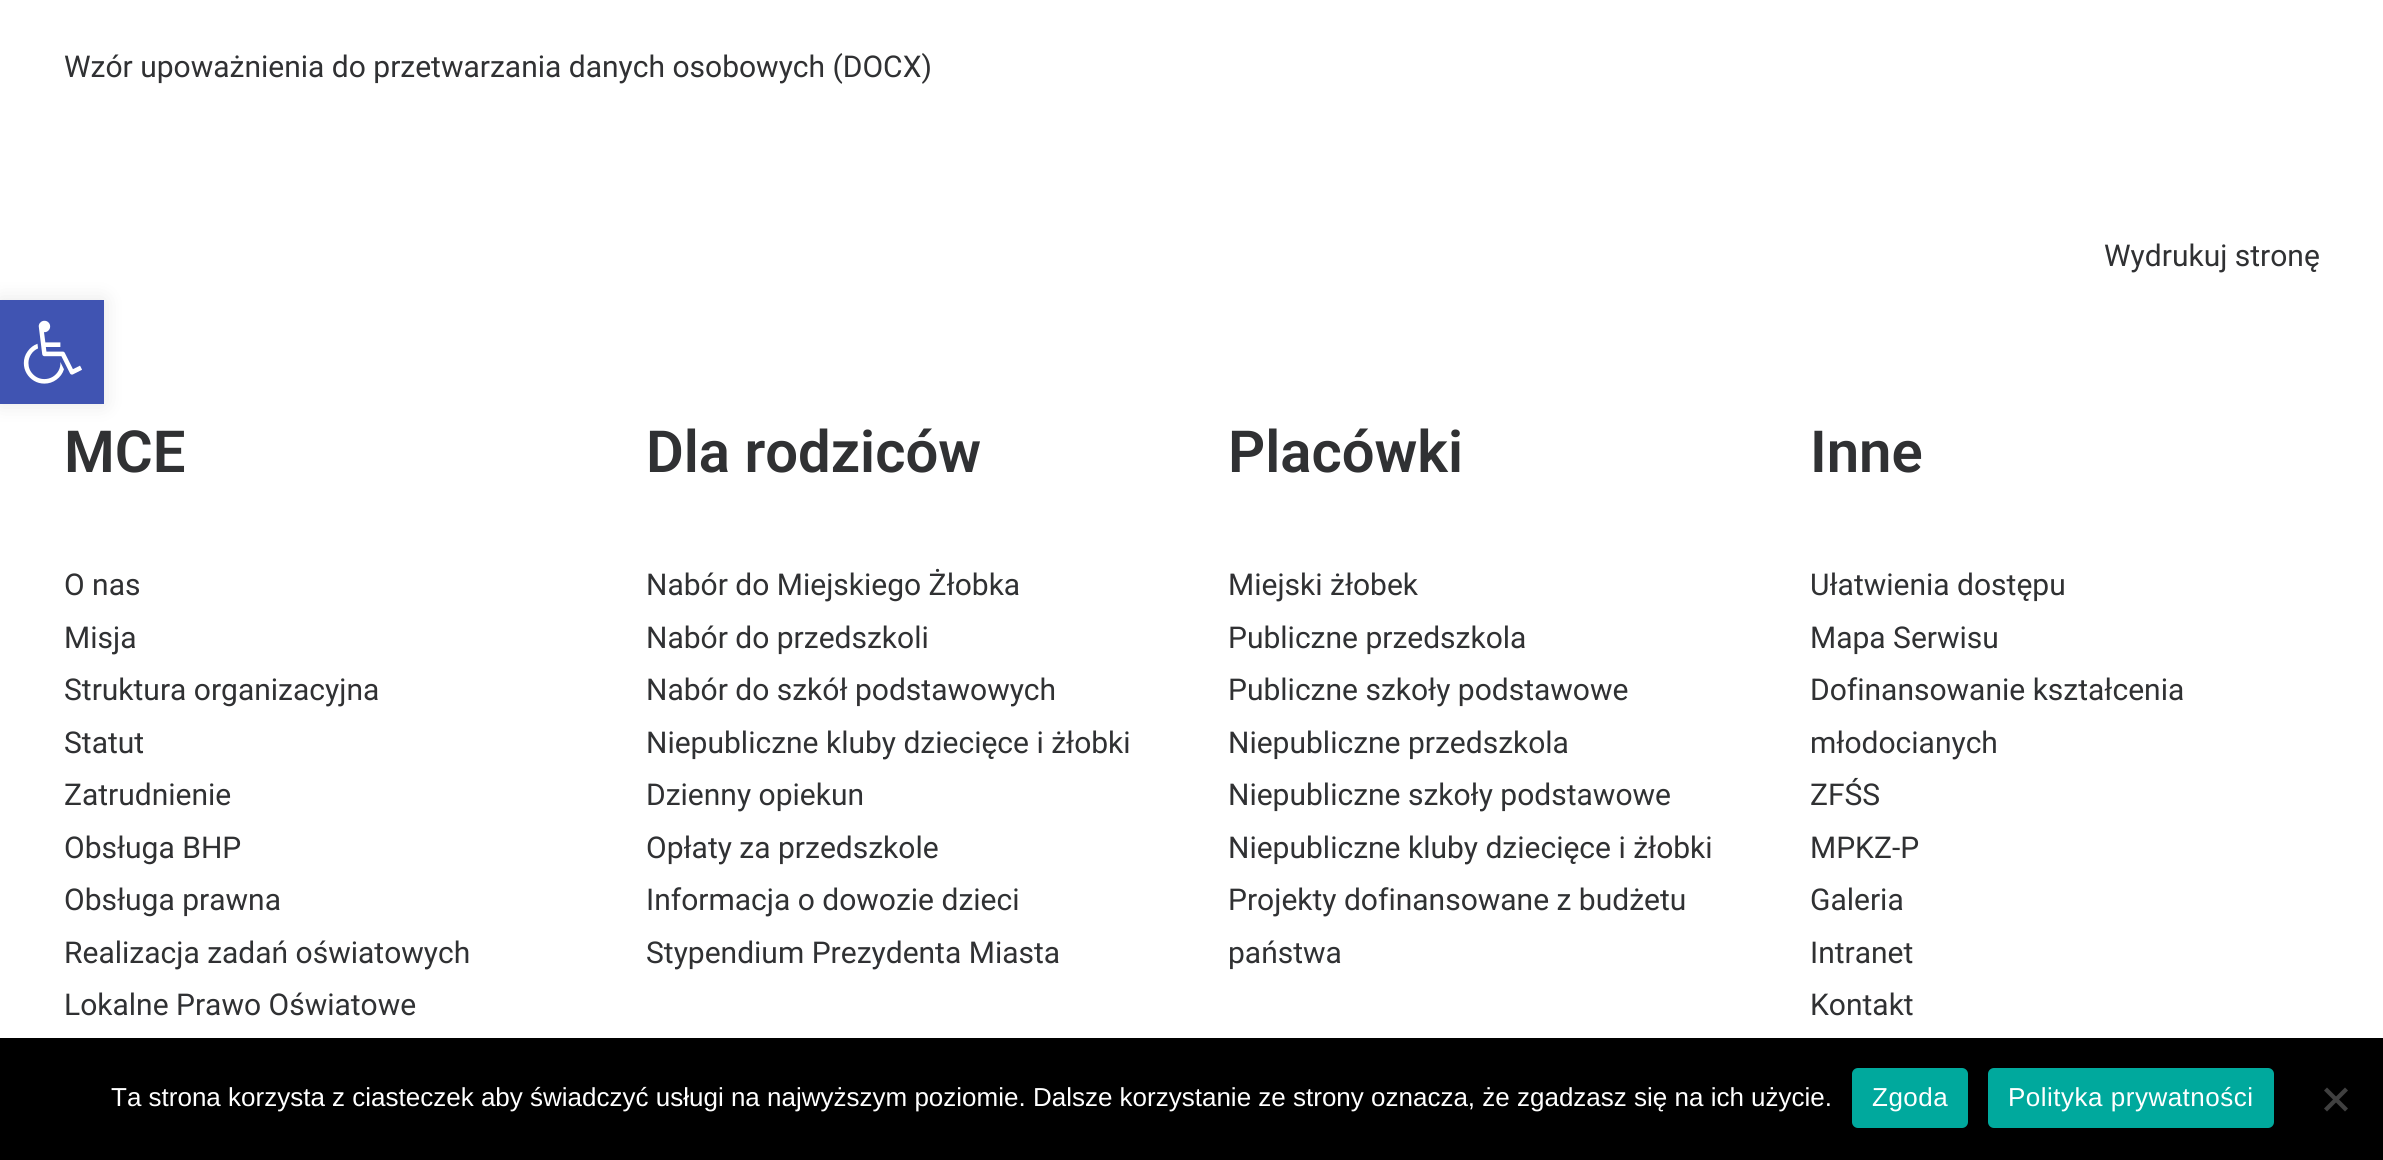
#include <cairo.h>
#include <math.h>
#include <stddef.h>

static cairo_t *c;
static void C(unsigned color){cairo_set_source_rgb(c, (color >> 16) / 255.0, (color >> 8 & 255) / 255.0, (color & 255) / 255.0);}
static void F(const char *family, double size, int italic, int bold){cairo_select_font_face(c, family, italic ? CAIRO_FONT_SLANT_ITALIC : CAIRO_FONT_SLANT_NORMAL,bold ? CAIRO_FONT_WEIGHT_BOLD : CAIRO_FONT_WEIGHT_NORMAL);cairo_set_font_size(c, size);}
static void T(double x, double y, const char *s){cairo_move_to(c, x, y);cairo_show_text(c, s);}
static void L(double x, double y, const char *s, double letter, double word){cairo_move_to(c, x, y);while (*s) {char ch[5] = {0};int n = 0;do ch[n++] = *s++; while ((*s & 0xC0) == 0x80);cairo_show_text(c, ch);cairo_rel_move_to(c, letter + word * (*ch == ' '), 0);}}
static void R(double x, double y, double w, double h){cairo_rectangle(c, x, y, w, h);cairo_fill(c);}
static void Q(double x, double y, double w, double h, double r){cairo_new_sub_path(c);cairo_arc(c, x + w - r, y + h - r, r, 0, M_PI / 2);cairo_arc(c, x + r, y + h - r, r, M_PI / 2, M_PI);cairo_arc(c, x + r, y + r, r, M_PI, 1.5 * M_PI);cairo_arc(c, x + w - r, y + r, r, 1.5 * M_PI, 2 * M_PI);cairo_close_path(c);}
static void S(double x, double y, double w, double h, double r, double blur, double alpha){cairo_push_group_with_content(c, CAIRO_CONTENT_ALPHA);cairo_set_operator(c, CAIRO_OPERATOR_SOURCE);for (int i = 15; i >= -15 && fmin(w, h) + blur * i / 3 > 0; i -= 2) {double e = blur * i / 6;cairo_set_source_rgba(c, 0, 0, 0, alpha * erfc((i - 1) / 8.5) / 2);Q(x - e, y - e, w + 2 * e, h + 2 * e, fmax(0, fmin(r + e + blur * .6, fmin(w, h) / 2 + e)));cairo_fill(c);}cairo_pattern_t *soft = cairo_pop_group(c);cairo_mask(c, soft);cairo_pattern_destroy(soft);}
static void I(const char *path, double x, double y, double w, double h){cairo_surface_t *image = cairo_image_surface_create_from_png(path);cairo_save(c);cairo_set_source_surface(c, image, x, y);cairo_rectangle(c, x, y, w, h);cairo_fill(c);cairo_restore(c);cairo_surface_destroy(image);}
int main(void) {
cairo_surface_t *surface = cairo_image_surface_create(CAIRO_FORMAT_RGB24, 2383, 1160);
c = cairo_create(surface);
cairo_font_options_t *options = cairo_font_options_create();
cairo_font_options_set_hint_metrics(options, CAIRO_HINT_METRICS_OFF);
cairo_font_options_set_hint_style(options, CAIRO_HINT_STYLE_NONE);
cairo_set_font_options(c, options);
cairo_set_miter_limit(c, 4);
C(0xffffff);
cairo_paint(c);
F("Roboto",30,0,0);
C(0x303133);
T(64,77,"Wzór upoważnienia do przetwarzania danych osobowych (DOCX)");
T(2104,266,"Wydrukuj stronę");
F("Roboto SemiBold",58,0,0);
T(64,472,"MCE");
F("Roboto",30,0,0);
T(64,595,"O nas");
T(64,648,"Misja");
T(64,700,"Struktura organizacyjna");
T(64,753,"Statut");
T(64,805,"Zatrudnienie");
T(64,858,"Obsługa BHP");
T(64,910,"Obsługa prawna");
T(64,963,"Realizacja zadań oświatowych");
T(64,1015,"Lokalne Prawo Oświatowe");
F("Roboto SemiBold",58,0,0);
T(646,472,"Dla rodziców");
F("Roboto",30,0,0);
T(646,595,"Nabór do Miejskiego Żłobka");
T(646,648,"Nabór do przedszkoli");
T(646,700,"Nabór do szkół podstawowych");
T(646,753,"Niepubliczne kluby dziecięce i żłobki");
T(646,805,"Dzienny opiekun");
T(646,858,"Opłaty za przedszkole");
T(646,910,"Informacja o dowozie dzieci");
T(646,963,"Stypendium Prezydenta Miasta");
F("Roboto SemiBold",58,0,0);
T(1228,472,"Placówki");
F("Roboto",30,0,0);
T(1228,595,"Miejski żłobek");
T(1228,648,"Publiczne przedszkola");
T(1228,700,"Publiczne szkoły podstawowe");
T(1228,753,"Niepubliczne przedszkola");
T(1228,805,"Niepubliczne szkoły podstawowe");
T(1228,858,"Niepubliczne kluby dziecięce i żłobki");
T(1228,910,"Projekty dofinansowane z budżetu");
T(1228,963,"państwa");
F("Roboto SemiBold",58,0,0);
T(1810,472,"Inne");
F("Roboto",30,0,0);
T(1810,595,"Ułatwienia dostępu");
T(1810,648,"Mapa Serwisu");
T(1810,700,"Dofinansowanie kształcenia");
T(1810,753,"młodocianych");
T(1810,805,"ZFŚS");
T(1810,858,"MPKZ-P");
T(1810,910,"Galeria");
T(1810,963,"Intranet");
T(1810,1015,"Kontakt");
C(0x000000);
S(0,300,104,104,0,10,.1);
C(0x4054b2);
R(0,300,104,104);
I("1.png",23,320,59,64);
C(0x000000);
R(0,1038,2383,122);
F("Liberation Sans",26,0,0);
C(0xffffff);
T(111,1106,"Ta strona korzysta z ciasteczek aby świadczyć usługi na najwyższym poziomie. Dalsze korzystanie ze strony oznacza, że zgadzasz się na ich użycie.");
C(0x00a99d);
Q(1852,1068,116,60,6);
cairo_fill(c);
C(0xffffff);
L(1872,1106,"Zgoda",.5,0);
C(0x00a99d);
Q(1988,1068,286,60,6);
cairo_fill(c);
C(0xffffff);
L(2008,1106,"Polityka prywatności",.5,0);
C(0x404040);
cairo_new_path(c);
cairo_move_to(c,2345,1087.5);
cairo_line_to(c,2348,1090.5);
cairo_line_to(c,2327,1111.5);
cairo_line_to(c,2324,1108.5);
cairo_close_path(c);
cairo_fill(c);
cairo_new_path(c);
cairo_move_to(c,2324,1090.5);
cairo_line_to(c,2327,1087.5);
cairo_line_to(c,2348,1108.5);
cairo_line_to(c,2345,1111.5);
cairo_close_path(c);
cairo_fill(c);
cairo_surface_write_to_png(surface, "o.png");
cairo_font_options_destroy(options);
cairo_destroy(c);
cairo_surface_destroy(surface);
return 0;
}
